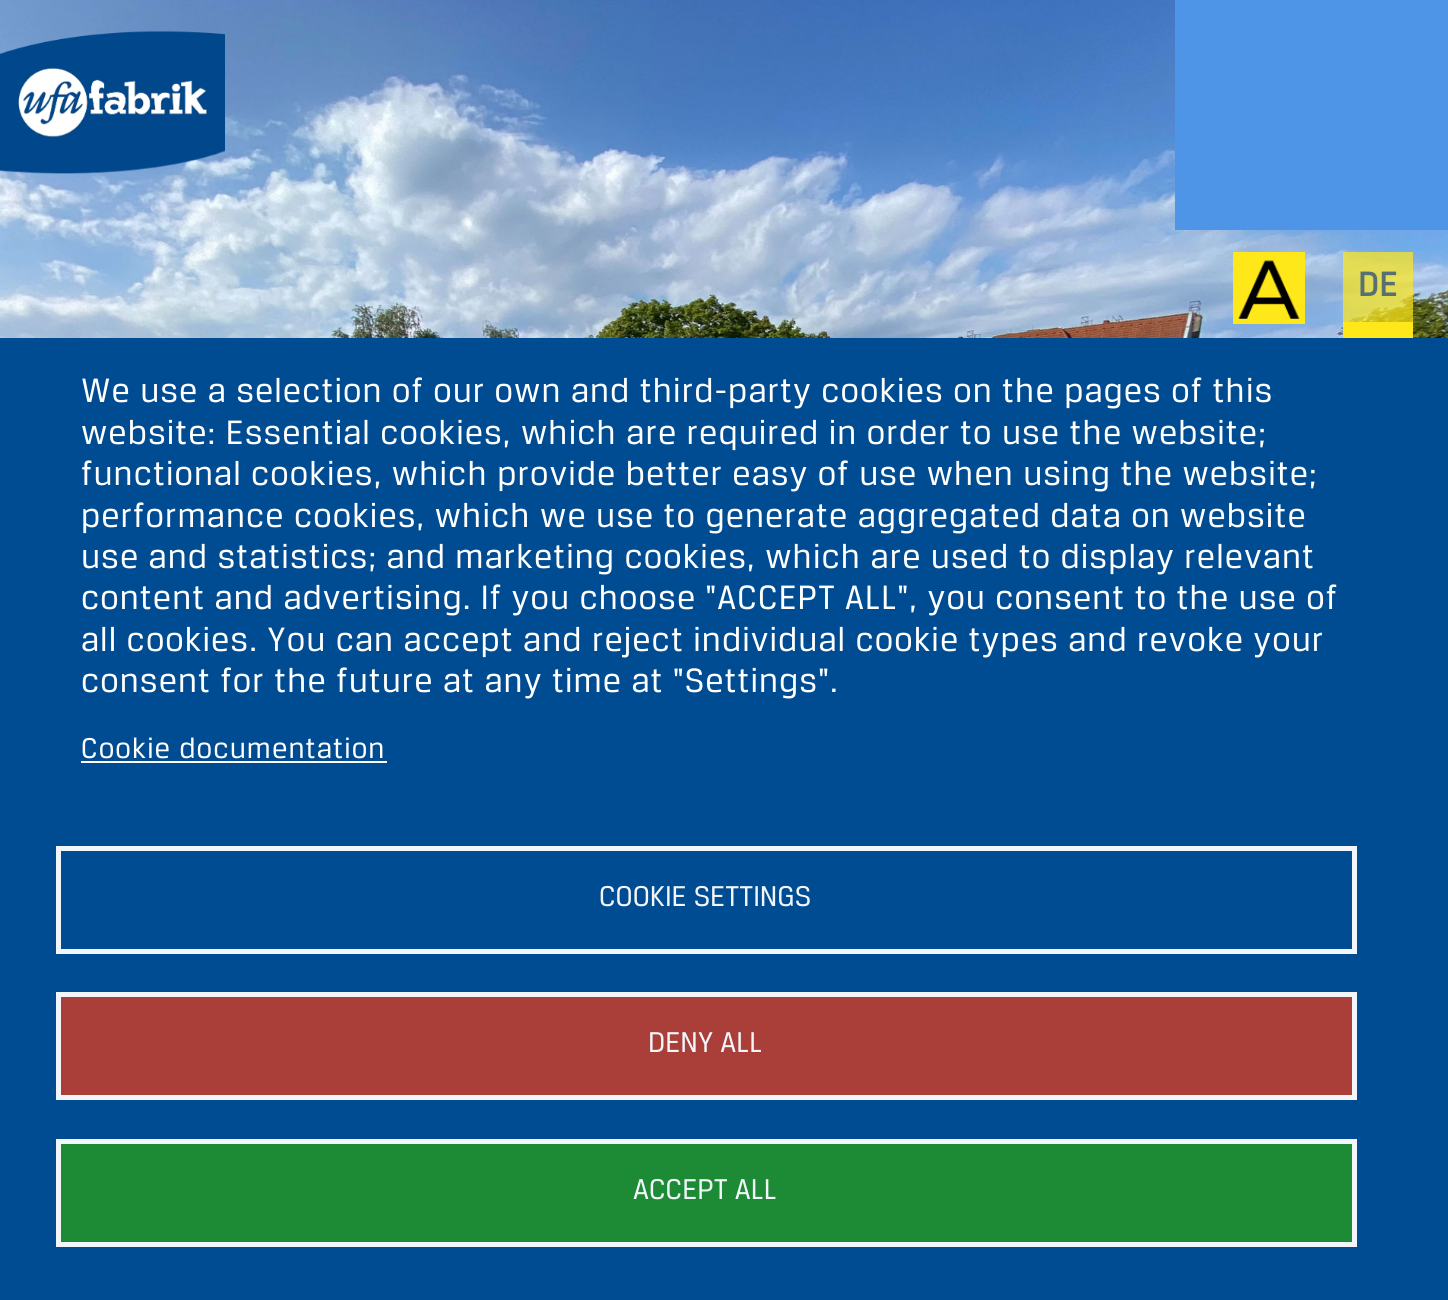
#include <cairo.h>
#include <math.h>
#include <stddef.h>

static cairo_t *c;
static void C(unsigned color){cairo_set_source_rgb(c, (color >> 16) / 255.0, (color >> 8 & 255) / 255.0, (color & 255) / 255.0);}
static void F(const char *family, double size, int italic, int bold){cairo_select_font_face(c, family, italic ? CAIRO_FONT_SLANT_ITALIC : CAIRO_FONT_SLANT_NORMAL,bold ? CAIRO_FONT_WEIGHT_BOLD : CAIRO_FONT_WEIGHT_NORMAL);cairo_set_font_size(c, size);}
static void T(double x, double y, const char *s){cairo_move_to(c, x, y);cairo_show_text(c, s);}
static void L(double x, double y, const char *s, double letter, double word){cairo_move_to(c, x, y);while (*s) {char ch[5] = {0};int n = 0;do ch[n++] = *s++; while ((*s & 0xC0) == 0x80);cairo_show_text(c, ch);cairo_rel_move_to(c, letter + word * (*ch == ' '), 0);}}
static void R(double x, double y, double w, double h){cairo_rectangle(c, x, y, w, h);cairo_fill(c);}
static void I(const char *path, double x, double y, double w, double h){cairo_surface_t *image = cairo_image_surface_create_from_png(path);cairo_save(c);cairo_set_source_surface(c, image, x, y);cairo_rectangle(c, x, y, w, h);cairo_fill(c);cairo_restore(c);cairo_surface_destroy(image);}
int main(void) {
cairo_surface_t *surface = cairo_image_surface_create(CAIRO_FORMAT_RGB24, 1448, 1300);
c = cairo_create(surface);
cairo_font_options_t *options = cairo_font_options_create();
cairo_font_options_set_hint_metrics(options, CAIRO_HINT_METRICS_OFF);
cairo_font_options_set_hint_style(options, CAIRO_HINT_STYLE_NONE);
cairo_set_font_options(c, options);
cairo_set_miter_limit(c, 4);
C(0xffffff);
cairo_paint(c);
I("1.png",0,230,1448,108);
C(0x4e94e7);
R(1175,0,273,230);
I("2.png",0,0,1175,230);
I("3.png",0,31,225,143);
I("4.png",1233,252,72,72);
cairo_set_source_rgba(c,1,0.91,0.098,0.7);
R(1343,252,70,70);
F("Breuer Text",36,0,1);
C(0x597073);
L(1358,296,"DE",1.08,0);
C(0xffe819);
R(1343,322,70,16);
C(0x004c93);
R(0,338,1448,962);
F("Breuer Text",36,0,0);
C(0xffffff);
L(81,402,"We use a selection of our own and third-party cookies on the pages of this",1.08,0);
L(81,444,"website: Essential cookies, which are required in order to use the website;",1.08,0);
L(81,485,"functional cookies, which provide better easy of use when using the website;",1.08,0);
L(81,527,"performance cookies, which we use to generate aggregated data on website",1.08,0);
L(81,568,"use and statistics; and marketing cookies, which are used to display relevant",1.08,0);
L(81,609,"content and advertising. If you choose \"ACCEPT ALL\", you consent to the use of",1.08,0);
L(81,651,"all cookies. You can accept and reject individual cookie types and revoke your",1.08,0);
L(81,692,"consent for the future at any time at \"Settings\".",1.08,0);
F("Breuer Text",30.5,0,0);
L(81,758,"Cookie documentation",1.08,0);
R(81,761,306,2);
cairo_rectangle(c,58.5,848.5,1296,103);
C(0xf2f6fa);
cairo_set_line_width(c,5);
cairo_stroke(c);
T(599,906,"COOKIE SETTINGS");
C(0xaa3e39);
cairo_rectangle(c,58.5,994.5,1296,103);
cairo_fill_preserve(c);
C(0xf2f6fa);
cairo_stroke(c);
T(648,1052,"DENY ALL");
C(0x1d8b35);
cairo_rectangle(c,58.5,1141.5,1296,103);
cairo_fill_preserve(c);
C(0xf2f6fa);
cairo_stroke(c);
T(633,1199,"ACCEPT ALL");
cairo_surface_write_to_png(surface, "o.png");
cairo_font_options_destroy(options);
cairo_destroy(c);
cairo_surface_destroy(surface);
return 0;
}
